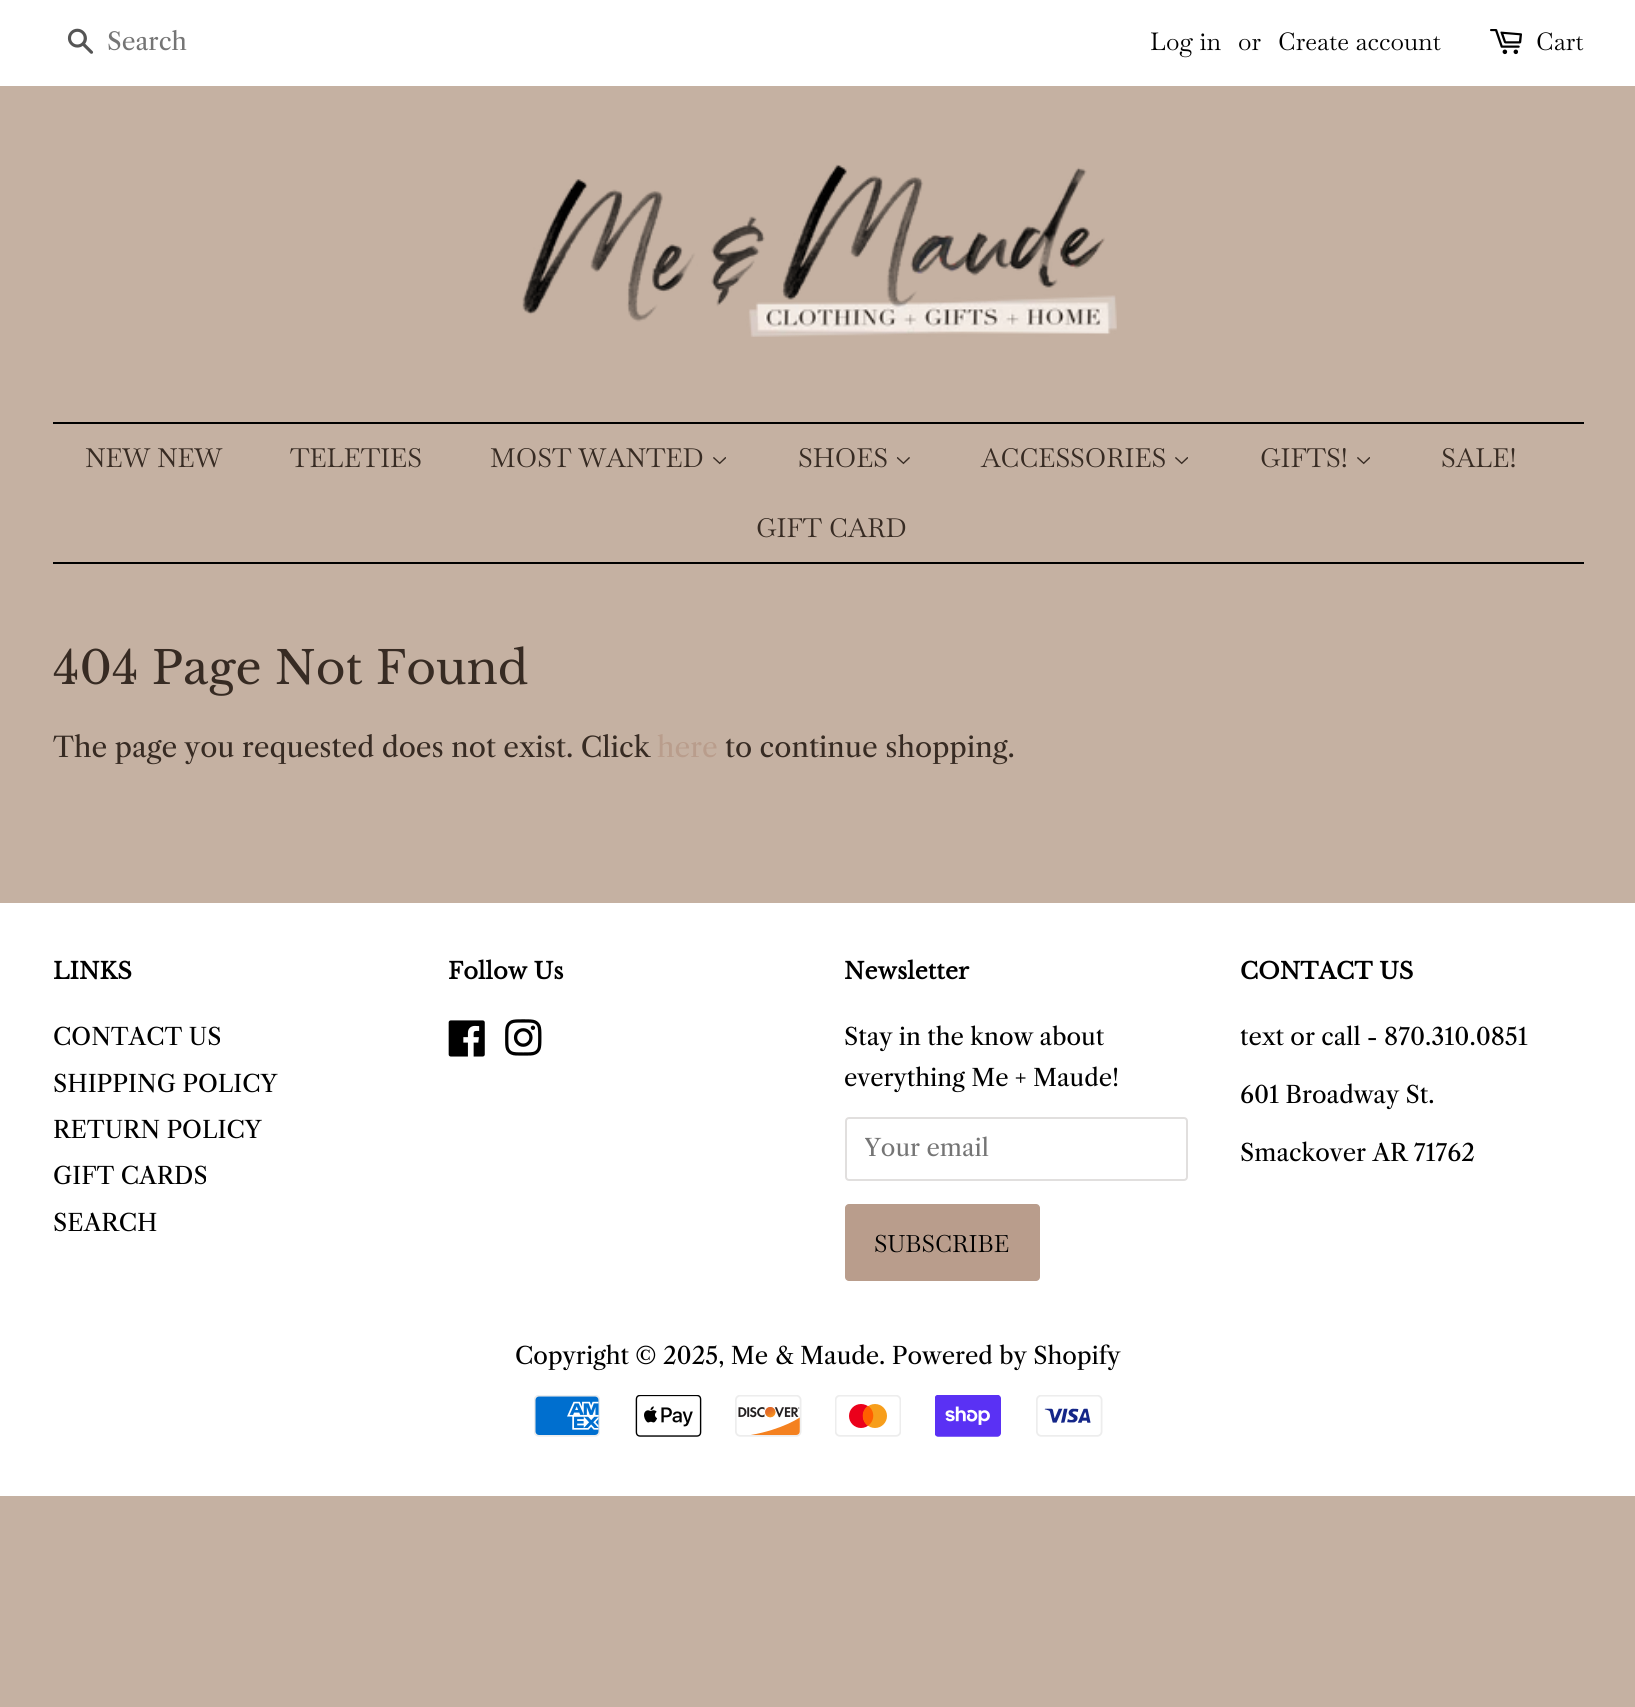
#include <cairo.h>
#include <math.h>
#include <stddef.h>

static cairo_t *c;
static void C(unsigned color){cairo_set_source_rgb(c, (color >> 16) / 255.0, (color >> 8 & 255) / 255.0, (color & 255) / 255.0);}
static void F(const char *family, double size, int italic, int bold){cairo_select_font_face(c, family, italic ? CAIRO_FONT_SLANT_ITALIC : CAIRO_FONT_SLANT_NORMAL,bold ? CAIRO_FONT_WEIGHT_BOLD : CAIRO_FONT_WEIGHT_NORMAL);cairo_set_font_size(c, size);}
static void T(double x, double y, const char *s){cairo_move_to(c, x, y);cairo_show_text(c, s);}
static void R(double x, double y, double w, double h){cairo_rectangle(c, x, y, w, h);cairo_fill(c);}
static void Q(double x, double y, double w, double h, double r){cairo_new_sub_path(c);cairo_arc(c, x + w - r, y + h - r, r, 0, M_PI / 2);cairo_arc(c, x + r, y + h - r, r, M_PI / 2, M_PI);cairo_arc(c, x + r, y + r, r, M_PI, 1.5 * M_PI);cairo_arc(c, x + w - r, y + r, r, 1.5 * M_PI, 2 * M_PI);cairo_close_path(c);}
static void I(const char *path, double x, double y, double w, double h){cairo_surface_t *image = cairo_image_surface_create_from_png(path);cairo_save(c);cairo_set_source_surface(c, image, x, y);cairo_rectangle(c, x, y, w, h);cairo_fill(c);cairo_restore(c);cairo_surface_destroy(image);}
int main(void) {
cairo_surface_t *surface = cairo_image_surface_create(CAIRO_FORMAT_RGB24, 1635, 1707);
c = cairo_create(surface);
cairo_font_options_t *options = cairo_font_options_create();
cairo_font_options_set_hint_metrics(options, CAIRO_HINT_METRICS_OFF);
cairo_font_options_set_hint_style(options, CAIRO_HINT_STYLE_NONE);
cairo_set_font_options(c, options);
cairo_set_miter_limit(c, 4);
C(0xc5b1a2);
cairo_paint(c);
C(0xffffff);
R(0,0,1635,86);
I("1.png",67,28,27,26);
F("Libre Caslon Text",24.5,0,0);
C(0x757575);
T(107,50,"Search");
F("Baskervville",24.5,0,0);
C(0x000000);
T(1150,50,"Log in");
T(1238,50,"or");
T(1278,50,"Create account");
I("2.png",1490,29,32,26);
T(1536,50,"Cart");
I("3.png",522,164,595,173);
R(53,422,1531,2);
R(53,562,1531,2);
F("Baskervville",26.25,0,0);
C(0x372b23);
T(85,467,"NEW NEW");
T(290,467,"TELETIES");
T(490,467,"MOST WANTED");
I("4.png",713,457,13,8);
T(798,467,"SHOES");
I("5.png",896,457,14,8);
T(981,467,"ACCESSORIES");
I("4.png",1175,457,13,8);
T(1260,467,"GIFTS!");
I("4.png",1357,457,13,8);
T(1441,467,"SALE!");
T(756,537,"GIFT CARD");
F("Libre Baskerville",45.5,0,0);
T(53,684,"404 Page Not Found");
F("Libre Caslon Text",28,0,0);
T(53,757,"The page you requested does not exist. Click");
C(0xb99d8c);
T(657,757,"here");
C(0x372b23);
T(725,757,"to continue shopping.");
C(0xffffff);
R(0,903,1635,593);
F("Libre Baskerville",22.75,0,1);
C(0x000000);
T(53,979,"LINKS");
F("Libre Caslon Text",23.8,0,0);
T(53,1045,"CONTACT US");
T(53,1092,"SHIPPING POLICY");
T(53,1138,"RETURN POLICY");
T(53,1184,"GIFT CARDS");
T(53,1231,"SEARCH");
F("Libre Baskerville",22.75,0,1);
T(448,979,"Follow Us");
I("6.png",448,1020,37,37);
I("7.png",505,1019,37,37);
T(844,979,"Newsletter");
F("Libre Caslon Text",23.8,0,0);
T(844,1045,"Stay in the know about");
T(844,1086,"everything Me + Maude!");
Q(846,1118,341,62,3);
C(0xe1dfde);
cairo_stroke(c);
cairo_save(c);
cairo_rectangle(c,865,1134,304,30);
cairo_clip(c);
C(0x757575);
T(864,1156,"Your email");
cairo_restore(c);
C(0xb99d8c);
Q(845,1204,195,77,4);
cairo_fill(c);
F("Baskervville",23.8,0,0);
C(0x000000);
T(874,1252,"SUBSCRIBE");
F("Libre Baskerville",22.75,0,1);
T(1240,979,"CONTACT US");
F("Libre Caslon Text",23.8,0,0);
T(1240,1045,"text or call - 870.310.0851");
T(1240,1103,"601 Broadway St.");
T(1240,1161,"Smackover AR 71762");
T(515,1364,"Copyright © 2025, Me & Maude. Powered by Shopify");
I("8.png",534,1395,66,42);
I("9.png",635,1395,67,42);
I("10.png",735,1395,67,42);
I("11.png",835,1395,66,42);
I("12.png",935,1395,66,42);
I("13.png",1036,1395,67,42);
cairo_surface_write_to_png(surface, "o.png");
cairo_font_options_destroy(options);
cairo_destroy(c);
cairo_surface_destroy(surface);
return 0;
}
